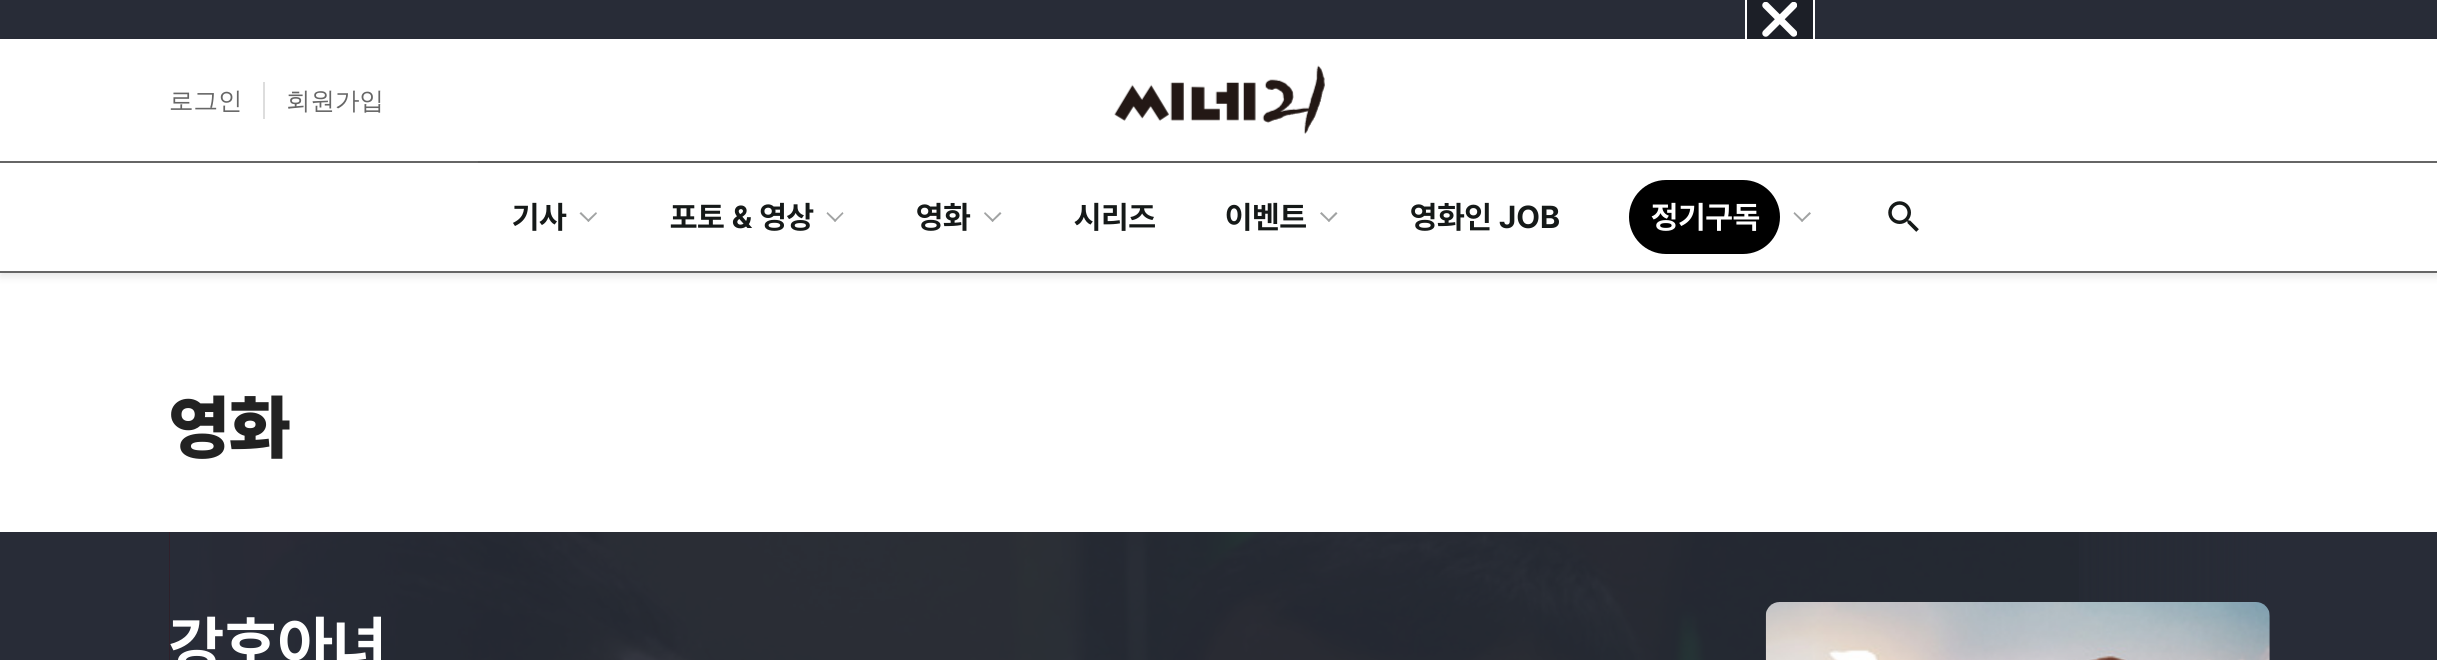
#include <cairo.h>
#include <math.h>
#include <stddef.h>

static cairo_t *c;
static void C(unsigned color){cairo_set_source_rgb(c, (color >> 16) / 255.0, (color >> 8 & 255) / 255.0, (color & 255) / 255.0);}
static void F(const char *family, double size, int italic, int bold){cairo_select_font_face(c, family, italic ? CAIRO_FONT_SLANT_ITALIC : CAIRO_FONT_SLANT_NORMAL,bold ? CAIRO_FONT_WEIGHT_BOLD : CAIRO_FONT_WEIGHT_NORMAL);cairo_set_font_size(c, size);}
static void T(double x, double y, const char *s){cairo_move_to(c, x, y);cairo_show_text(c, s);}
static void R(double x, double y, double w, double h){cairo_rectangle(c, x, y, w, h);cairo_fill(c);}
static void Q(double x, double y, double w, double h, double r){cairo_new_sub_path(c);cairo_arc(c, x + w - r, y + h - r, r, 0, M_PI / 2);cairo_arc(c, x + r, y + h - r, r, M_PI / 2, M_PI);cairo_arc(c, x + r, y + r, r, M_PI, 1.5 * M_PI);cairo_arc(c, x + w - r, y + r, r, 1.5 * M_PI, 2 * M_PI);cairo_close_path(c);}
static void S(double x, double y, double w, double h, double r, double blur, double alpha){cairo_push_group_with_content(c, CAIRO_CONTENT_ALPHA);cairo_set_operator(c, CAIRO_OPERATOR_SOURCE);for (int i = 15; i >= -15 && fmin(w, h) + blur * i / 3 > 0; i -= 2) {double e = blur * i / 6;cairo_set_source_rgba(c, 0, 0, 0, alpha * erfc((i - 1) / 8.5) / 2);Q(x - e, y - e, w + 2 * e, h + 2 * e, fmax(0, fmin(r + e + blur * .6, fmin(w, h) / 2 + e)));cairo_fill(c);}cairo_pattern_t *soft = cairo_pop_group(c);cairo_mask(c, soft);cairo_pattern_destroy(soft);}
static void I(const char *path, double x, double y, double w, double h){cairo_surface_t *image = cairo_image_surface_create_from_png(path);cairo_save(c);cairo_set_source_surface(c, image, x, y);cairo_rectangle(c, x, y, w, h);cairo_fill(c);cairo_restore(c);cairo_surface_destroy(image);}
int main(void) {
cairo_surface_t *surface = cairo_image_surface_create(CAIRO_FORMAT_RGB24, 2437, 660);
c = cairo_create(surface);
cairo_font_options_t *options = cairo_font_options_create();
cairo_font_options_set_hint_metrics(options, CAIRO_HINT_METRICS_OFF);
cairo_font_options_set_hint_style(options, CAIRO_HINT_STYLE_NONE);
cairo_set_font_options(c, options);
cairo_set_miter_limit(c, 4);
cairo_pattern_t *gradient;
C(0xffffff);
cairo_paint(c);
C(0x282c37);
R(0,0,2437,39);
C(0x1c1f27);
R(1747,0,66,39);
I("1.png",1762,2,35,35);
cairo_rectangle(c,1746,-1,68,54);
C(0xffffff);
cairo_stroke(c);
C(0x000000);
S(0,42,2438,235,0,4,.09);
C(0xffffff);
R(0,39,2437,232);
C(0x666666);
R(0,161,2437,2);
C(0xdddddd);
R(263,82,2,37);
F("WenQuanYi Zen Hei Medium",24.5,0,0);
C(0x666666);
T(169,109,"로그인");
T(286,109,"회원가입");
I("2.png",1114,65,211,69);
R(0,271,2437,2);
C(0x5e5e5e);
R(478,161,1482,2);
F("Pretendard",31.5,0,1);
C(0x151918);
T(512,228,"기사");
C(0xa1a3a3);
cairo_new_path(c);
cairo_move_to(c,587,220.5);
cairo_line_to(c,596,212);
cairo_line_to(c,597,213.5);
cairo_line_to(c,588.5,222);
cairo_close_path(c);
cairo_fill(c);
cairo_new_path(c);
cairo_move_to(c,579.5,213.5);
cairo_line_to(c,581,212);
cairo_line_to(c,589.5,220.5);
cairo_line_to(c,588.5,222);
cairo_close_path(c);
cairo_fill(c);
C(0x151918);
T(670,228,"포토 & 영상");
C(0xa1a3a3);
cairo_new_path(c);
cairo_move_to(c,834,220.5);
cairo_line_to(c,842.5,212);
cairo_line_to(c,843.5,213.5);
cairo_line_to(c,835,222);
cairo_close_path(c);
cairo_fill(c);
cairo_new_path(c);
cairo_move_to(c,826.5,213.5);
cairo_line_to(c,827.5,212);
cairo_line_to(c,836.5,220.5);
cairo_line_to(c,835,222);
cairo_close_path(c);
cairo_fill(c);
C(0x151918);
T(916,228,"영화");
C(0xa1a3a3);
cairo_new_path(c);
cairo_move_to(c,991.5,220.5);
cairo_line_to(c,1000,212);
cairo_line_to(c,1001.5,213.5);
cairo_line_to(c,992.5,222);
cairo_close_path(c);
cairo_fill(c);
cairo_new_path(c);
cairo_move_to(c,984,213.5);
cairo_line_to(c,985,212);
cairo_line_to(c,994,220.5);
cairo_line_to(c,992.5,222);
cairo_close_path(c);
cairo_fill(c);
C(0x151918);
T(1074,228,"시리즈");
T(1225,228,"이벤트");
C(0xa1a3a3);
cairo_new_path(c);
cairo_move_to(c,1327.5,220.5);
cairo_line_to(c,1336,212);
cairo_line_to(c,1337.5,213.5);
cairo_line_to(c,1329,222);
cairo_close_path(c);
cairo_fill(c);
cairo_new_path(c);
cairo_move_to(c,1320,213.5);
cairo_line_to(c,1321.5,212);
cairo_line_to(c,1330,220.5);
cairo_line_to(c,1329,222);
cairo_close_path(c);
cairo_fill(c);
C(0x151918);
T(1410,228,"영화인 JOB");
C(0x000000);
Q(1629,180,151,74,37);
cairo_fill(c);
C(0xffffff);
T(1651,228,"정기구독");
C(0xa1a3a3);
cairo_new_path(c);
cairo_move_to(c,1801,220.5);
cairo_line_to(c,1809.5,212);
cairo_line_to(c,1811,213.5);
cairo_line_to(c,1802,222);
cairo_close_path(c);
cairo_fill(c);
cairo_new_path(c);
cairo_move_to(c,1793.5,213.5);
cairo_line_to(c,1794.5,212);
cairo_line_to(c,1803.5,220.5);
cairo_line_to(c,1802,222);
cairo_close_path(c);
cairo_fill(c);
I("3.png",1888,201,31,31);
F("Pretendard Black",70,0,0);
C(0x222222);
T(169,452,"영화");
C(0x282c37);
R(0,532,2437,128);
I("4.png",169,532,2099,128);
F("Pretendard",63,0,1);
C(0xffffff);
T(169,667,"강호아녀");
gradient = cairo_pattern_create_linear(2270,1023,1937,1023);
cairo_pattern_add_color_stop_rgba(gradient,0,0.157,0.173,0.216,1);
cairo_pattern_add_color_stop_rgba(gradient,1,0.157,0.173,0.216,0);
cairo_set_source(c,gradient);
cairo_pattern_destroy(gradient);
R(2079,532,189,128);
I("5.png",1765,602,505,58);
cairo_surface_write_to_png(surface, "o.png");
cairo_font_options_destroy(options);
cairo_destroy(c);
cairo_surface_destroy(surface);
return 0;
}
